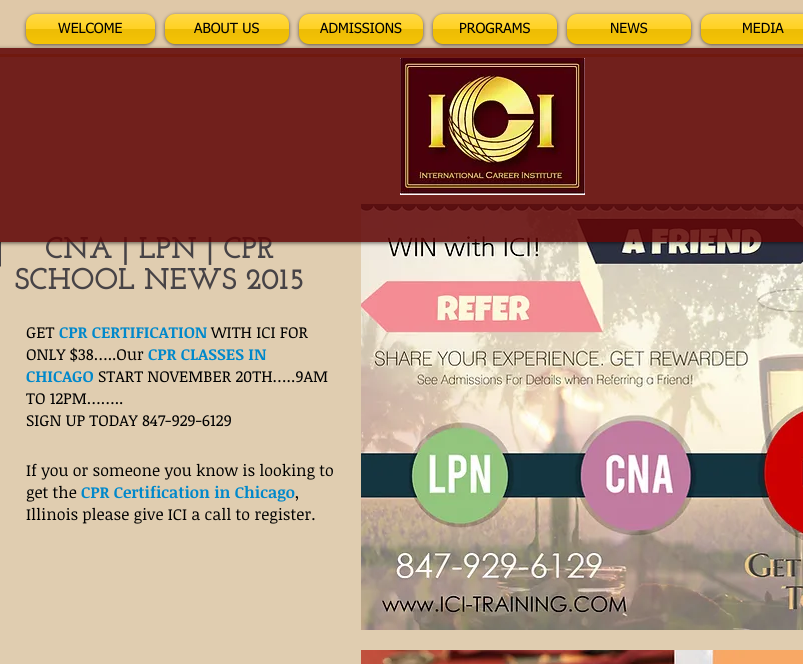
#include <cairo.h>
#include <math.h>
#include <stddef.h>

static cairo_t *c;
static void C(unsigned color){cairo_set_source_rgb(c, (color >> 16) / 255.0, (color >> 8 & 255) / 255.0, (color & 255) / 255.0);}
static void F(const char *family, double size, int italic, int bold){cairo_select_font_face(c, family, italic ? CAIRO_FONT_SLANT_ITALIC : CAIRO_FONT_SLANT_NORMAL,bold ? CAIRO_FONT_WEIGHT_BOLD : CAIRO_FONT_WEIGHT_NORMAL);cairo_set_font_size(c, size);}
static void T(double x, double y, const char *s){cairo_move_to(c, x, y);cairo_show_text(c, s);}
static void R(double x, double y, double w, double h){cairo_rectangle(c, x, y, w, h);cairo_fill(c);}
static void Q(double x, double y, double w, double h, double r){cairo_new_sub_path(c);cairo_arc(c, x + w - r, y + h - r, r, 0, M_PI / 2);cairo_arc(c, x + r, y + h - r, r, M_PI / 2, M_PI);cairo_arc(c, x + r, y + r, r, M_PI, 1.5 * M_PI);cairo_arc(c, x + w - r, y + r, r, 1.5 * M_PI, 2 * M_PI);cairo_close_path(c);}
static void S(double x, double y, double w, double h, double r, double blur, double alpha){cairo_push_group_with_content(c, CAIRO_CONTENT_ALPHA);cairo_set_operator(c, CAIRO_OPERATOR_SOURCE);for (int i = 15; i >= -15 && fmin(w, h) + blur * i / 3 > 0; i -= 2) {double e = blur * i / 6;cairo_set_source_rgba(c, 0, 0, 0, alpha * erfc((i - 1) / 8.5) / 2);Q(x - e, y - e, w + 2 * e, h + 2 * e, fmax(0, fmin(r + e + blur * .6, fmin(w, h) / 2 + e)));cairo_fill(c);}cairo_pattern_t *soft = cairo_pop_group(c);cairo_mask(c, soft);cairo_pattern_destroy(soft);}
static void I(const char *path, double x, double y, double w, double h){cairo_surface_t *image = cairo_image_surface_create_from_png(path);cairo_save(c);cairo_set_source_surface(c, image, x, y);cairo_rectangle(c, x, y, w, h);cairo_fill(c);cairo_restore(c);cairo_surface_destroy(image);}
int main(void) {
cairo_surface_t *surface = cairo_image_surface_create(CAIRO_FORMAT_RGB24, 803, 664);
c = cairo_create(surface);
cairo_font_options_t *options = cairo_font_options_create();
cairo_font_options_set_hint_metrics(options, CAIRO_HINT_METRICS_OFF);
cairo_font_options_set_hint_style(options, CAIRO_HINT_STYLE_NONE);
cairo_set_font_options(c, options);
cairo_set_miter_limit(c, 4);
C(0xdd974b);
cairo_paint(c);
C(0xdfc8a8);
R(0,0,803,54);
C(0x000000);
S(26,15,129,30,10,2,.6);
C(0xffcb05);
Q(26,14,129,30,10);
cairo_fill(c);
I("1.png",26,14,129,30);
F("tahoma",14,0,0);
C(0x000000);
T(58,33,"WELCOME");
C(0x000000);
S(165,15,124,30,10,2,.6);
C(0xffcb05);
Q(165,14,124,30,10);
cairo_fill(c);
I("2.png",165,14,124,30);
C(0x000000);
T(194,33,"ABOUT US");
C(0x000000);
S(299,15,124,30,10,2,.6);
C(0xffcb05);
Q(299,14,124,30,10);
cairo_fill(c);
I("3.png",299,14,124,30);
C(0x000000);
T(320,33,"ADMISSIONS");
C(0x000000);
S(433,15,124,30,10,2,.6);
C(0xffcb05);
Q(433,14,124,30,10);
cairo_fill(c);
I("2.png",433,14,124,30);
C(0x000000);
T(459,33,"PROGRAMS");
C(0x000000);
S(567,15,124,30,10,2,.6);
C(0xffcb05);
Q(567,14,124,30,10);
cairo_fill(c);
I("2.png",567,14,124,30);
C(0x000000);
T(610,33,"NEWS");
C(0x000000);
S(701,15,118,30,10,2,.6);
C(0xffcb05);
Q(701,14,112,30,10);
cairo_fill(c);
I("4.png",701,14,102,30);
C(0x000000);
T(742,33,"MEDIA");
C(0xe0cdb0);
R(0,57,803,607);
C(0x474346);
cairo_new_path(c);
cairo_move_to(c,-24,242);
cairo_line_to(c,1,242);
cairo_line_to(c,1,267);
cairo_close_path(c);
cairo_fill(c);
I("6.png",361,204,442,426);
cairo_save(c);
cairo_set_fill_rule(c,CAIRO_FILL_RULE_EVEN_ODD);
cairo_new_path(c);
cairo_move_to(c,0,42);
cairo_line_to(c,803,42);
cairo_line_to(c,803,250);
cairo_line_to(c,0,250);
cairo_close_path(c);
cairo_move_to(c,-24,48);
cairo_line_to(c,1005,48);
cairo_line_to(c,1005,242);
cairo_line_to(c,-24,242);
cairo_close_path(c);
cairo_clip(c);
C(0x000000);
S(-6,49,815,194,0,2,.6);
cairo_restore(c);
F("Josefin Slab",30,0,1);
T(45,258,"CNA | LPN | CPR");
cairo_set_source_rgba(c,0.376,0.02,0.02,0.86);
R(0,48,803,194);
I("5.png",400,58,185,137);
C(0x474346);
T(15,289,"SCHOOL NEWS 2015");
F("Noticia Text",16,0,0);
C(0x000000);
T(26,338,"GET");
F("Noticia Text",16,0,1);
C(0x0088cb);
T(59,338,"CPR CERTIFICATION");
F("Noticia Text",16,0,0);
C(0x000000);
T(211,338,"WITH ICI FOR");
T(26,360,"ONLY $38…..Our");
F("Noticia Text",16,0,1);
C(0x0088cb);
T(148,360,"CPR CLASSES IN");
T(26,382,"CHICAGO");
F("Noticia Text",16,0,0);
C(0x000000);
T(98,382,"START NOVEMBER 20TH…..9AM");
T(26,404,"TO 12PM……..");
T(26,426,"SIGN UP TODAY 847-929-6129");
T(26,476,"If you or someone you know is looking to");
T(26,498,"get the");
F("Noticia Text",16,0,1);
C(0x0088cb);
T(81,498,"CPR Certification in Chicago");
F("Noticia Text",16,0,0);
C(0x000000);
T(295,498,",");
T(26,520,"Illinois please give ICI a call to register.");
I("7.png",361,650,442,14);
cairo_surface_write_to_png(surface, "o.png");
cairo_font_options_destroy(options);
cairo_destroy(c);
cairo_surface_destroy(surface);
return 0;
}
